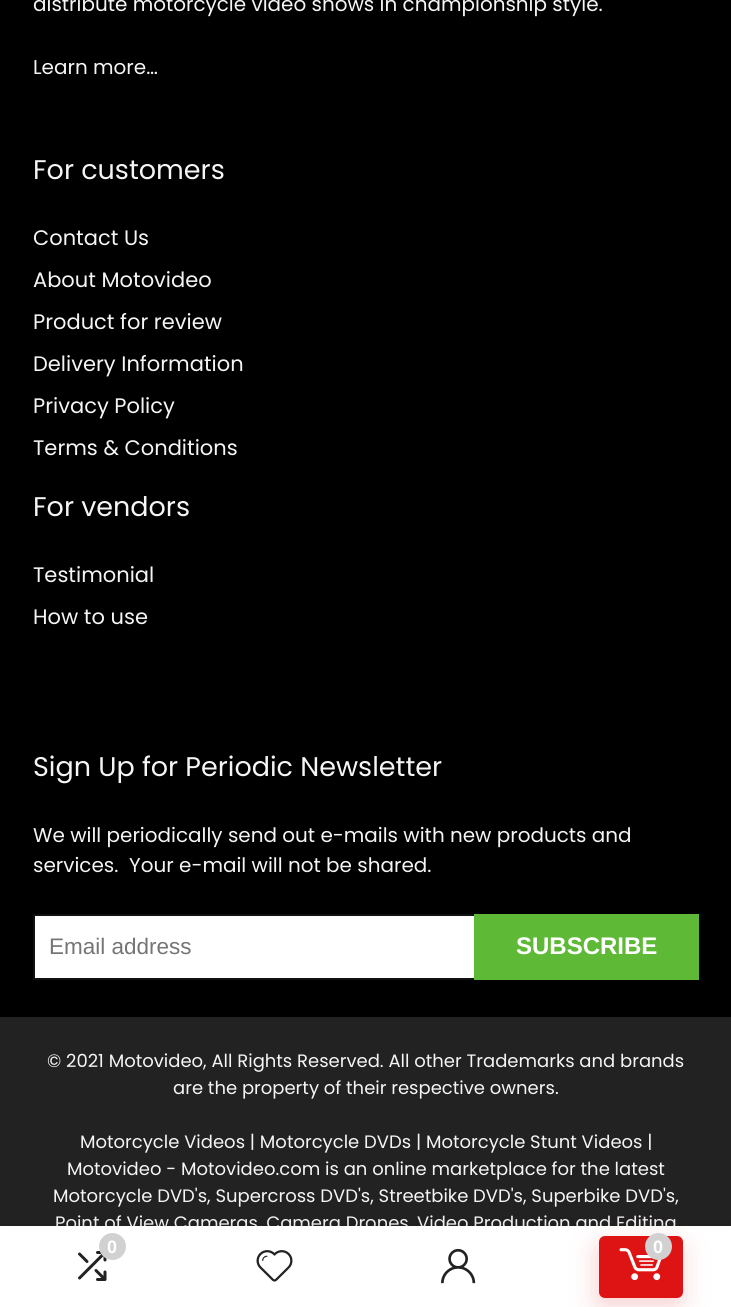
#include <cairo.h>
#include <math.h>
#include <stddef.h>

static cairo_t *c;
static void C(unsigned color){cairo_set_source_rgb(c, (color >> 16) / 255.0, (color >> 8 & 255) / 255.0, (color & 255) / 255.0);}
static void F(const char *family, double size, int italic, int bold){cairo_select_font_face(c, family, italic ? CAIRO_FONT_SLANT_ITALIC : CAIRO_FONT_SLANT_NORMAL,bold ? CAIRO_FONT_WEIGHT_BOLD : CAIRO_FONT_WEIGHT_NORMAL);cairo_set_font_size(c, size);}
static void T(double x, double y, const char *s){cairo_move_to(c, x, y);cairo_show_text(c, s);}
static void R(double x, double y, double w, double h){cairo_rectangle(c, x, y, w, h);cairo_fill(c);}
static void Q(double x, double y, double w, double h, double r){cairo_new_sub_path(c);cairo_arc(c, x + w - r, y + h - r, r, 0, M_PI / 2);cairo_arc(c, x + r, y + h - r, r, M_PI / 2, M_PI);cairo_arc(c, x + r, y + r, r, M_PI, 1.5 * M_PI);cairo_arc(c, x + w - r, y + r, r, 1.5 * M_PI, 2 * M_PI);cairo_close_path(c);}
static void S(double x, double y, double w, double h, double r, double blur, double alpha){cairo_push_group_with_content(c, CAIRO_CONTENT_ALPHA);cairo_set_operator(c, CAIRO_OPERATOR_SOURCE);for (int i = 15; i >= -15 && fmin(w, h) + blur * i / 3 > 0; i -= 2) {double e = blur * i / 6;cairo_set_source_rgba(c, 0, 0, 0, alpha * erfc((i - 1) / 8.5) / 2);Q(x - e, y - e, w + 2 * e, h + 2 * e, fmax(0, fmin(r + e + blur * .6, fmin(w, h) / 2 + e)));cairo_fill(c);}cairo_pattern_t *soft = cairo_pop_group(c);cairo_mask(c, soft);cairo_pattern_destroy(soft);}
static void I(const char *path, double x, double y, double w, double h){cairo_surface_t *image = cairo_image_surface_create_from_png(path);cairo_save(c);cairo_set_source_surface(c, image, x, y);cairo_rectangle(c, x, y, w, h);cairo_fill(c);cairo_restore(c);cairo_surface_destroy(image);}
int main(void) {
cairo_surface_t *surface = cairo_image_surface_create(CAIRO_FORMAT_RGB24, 731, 1307);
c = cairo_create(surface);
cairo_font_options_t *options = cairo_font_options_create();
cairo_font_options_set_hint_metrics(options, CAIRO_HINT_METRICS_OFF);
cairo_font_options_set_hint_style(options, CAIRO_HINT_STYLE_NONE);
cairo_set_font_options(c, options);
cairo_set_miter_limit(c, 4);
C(0x000000);
cairo_paint(c);
F("Poppins",19.95,0,0);
C(0xf5f5f5);
T(33,11,"distribute motorcycle video shows in championship style.");
T(33,74,"Learn more…");
F("Poppins",27,0,0);
T(33,179,"For customers");
F("Poppins",21,0,0);
T(33,245,"Contact Us");
T(33,287,"About Motovideo");
T(33,329,"Product for review");
T(33,371,"Delivery Information");
T(33,413,"Privacy Policy");
T(33,455,"Terms & Conditions");
F("Poppins",27,0,0);
T(33,516,"For vendors");
F("Poppins",21,0,0);
T(33,582,"Testimonial");
T(33,624,"How to use");
F("Poppins",27,0,0);
T(33,776,"Sign Up for Periodic Newsletter");
F("Poppins",19.95,0,0);
T(33,842,"We will periodically send out e-mails with new products and");
T(33,872,"services.  Your e-mail will not be shared.");
C(0xffffff);
R(35,916,439,62);
cairo_rectangle(c,34,915,664,64);
C(0x111111);
cairo_stroke(c);
F("Liberation Sans",22.5,0,0);
C(0x757575);
T(49,954,"Email address");
C(0x5eb936);
R(474,914,225,66);
F("Liberation Sans",24,0,1);
C(0xffffff);
T(516,954,"SUBSCRIBE");
C(0x222222);
R(0,1017,731,209);
F("Poppins",18,0,0);
C(0xf5f5f5);
T(47,1067,"© 2021 Motovideo, All Rights Reserved. All other Trademarks and brands");
T(173,1094,"are the property of their respective owners.");
T(80,1148,"Motorcycle Videos | Motorcycle DVDs | Motorcycle Stunt Videos |");
T(67,1175,"Motovideo - Motovideo.com is an online marketplace for the latest");
T(53,1202,"Motorcycle DVD's, Supercross DVD's, Streetbike DVD's, Superbike DVD's,");
T(55,1229,"Point of View Cameras, Camera Drones, Video Production and Editing");
C(0x000000);
S(0,1226,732,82,0,7,.12);
C(0xffffff);
R(0,1226,731,81);
I("1.png",78,1251,29,30);
C(0xd1d1d1);
cairo_arc(c,112.5,1246.5,13.5,0,2 * M_PI);
cairo_fill(c);
F("Liberation Sans",18,0,1);
C(0xffffff);
T(107,1253,"0");
I("2.png",256,1250,37,32);
I("3.png",441,1248,35,36);
C(0xde1414);
S(597,1245,84,62,6,14,.2);
C(0xde1414);
Q(599,1236,84,62,6);
cairo_fill(c);
I("4.png",619,1248,43,33);
C(0xd1d1d1);
cairo_arc(c,658.5,1246.5,13.5,0,2 * M_PI);
cairo_fill(c);
C(0xffffff);
T(653,1253,"0");
cairo_surface_write_to_png(surface, "o.png");
cairo_font_options_destroy(options);
cairo_destroy(c);
cairo_surface_destroy(surface);
return 0;
}
